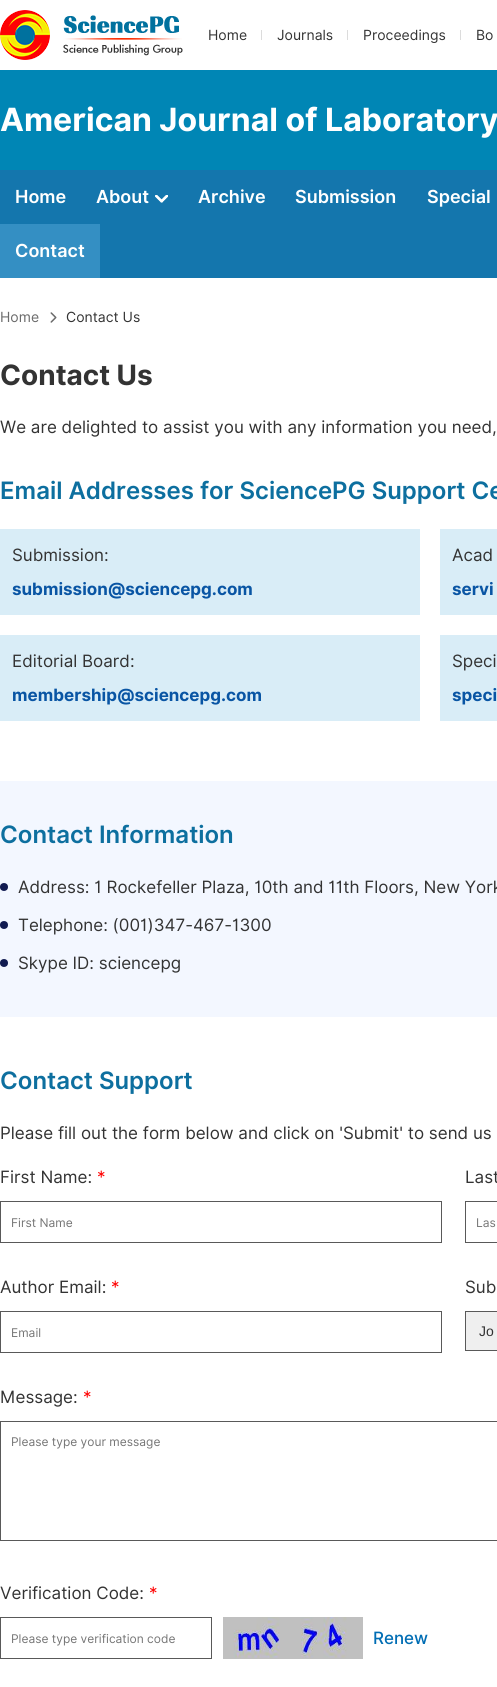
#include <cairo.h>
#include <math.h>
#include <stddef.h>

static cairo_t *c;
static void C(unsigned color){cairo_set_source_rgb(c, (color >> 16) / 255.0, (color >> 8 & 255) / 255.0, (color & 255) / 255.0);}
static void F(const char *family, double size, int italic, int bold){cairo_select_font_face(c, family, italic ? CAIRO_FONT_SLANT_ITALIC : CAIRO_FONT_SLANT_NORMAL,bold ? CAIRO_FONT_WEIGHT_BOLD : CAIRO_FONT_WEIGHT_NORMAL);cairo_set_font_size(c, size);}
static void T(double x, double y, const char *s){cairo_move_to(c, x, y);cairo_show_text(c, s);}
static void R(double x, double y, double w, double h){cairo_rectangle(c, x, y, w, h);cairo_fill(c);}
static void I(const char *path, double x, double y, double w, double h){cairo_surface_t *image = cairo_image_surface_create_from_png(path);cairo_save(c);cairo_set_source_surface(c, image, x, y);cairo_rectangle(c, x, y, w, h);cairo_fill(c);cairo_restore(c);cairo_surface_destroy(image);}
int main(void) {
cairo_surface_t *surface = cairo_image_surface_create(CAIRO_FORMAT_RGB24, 497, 1687);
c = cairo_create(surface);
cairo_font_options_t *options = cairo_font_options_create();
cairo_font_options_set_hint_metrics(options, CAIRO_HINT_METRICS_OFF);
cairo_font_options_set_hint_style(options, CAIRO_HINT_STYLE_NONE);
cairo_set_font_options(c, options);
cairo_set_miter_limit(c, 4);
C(0xffffff);
cairo_paint(c);
I("1.png",0,10,183,50);
C(0xdcdcdc);
R(261,30,1,10);
F("Inter",14,0,0);
C(0x333333);
T(208,40,"Home");
C(0xdcdcdc);
R(347,30,1,10);
C(0x333333);
T(277,40,"Journals");
C(0xdcdcdc);
R(460,30,1,10);
C(0x333333);
T(363,40,"Proceedings");
T(476,40,"Bo");
C(0x0086b5);
R(0,70,497,100);
F("Inter",32,0,1);
C(0xffffff);
T(0,131,"American Journal of Laboratory");
C(0x1476ad);
R(0,170,497,108);
F("Inter SemiBold",18,0,0);
C(0xffffff);
T(15,203,"Home");
T(96,203,"About");
I("2.png",155,195,13,8);
T(198,203,"Archive");
T(295,203,"Submission");
T(427,203,"Special");
C(0x348fc3);
R(0,224,100,54);
C(0xffffff);
T(15,257,"Contact");
F("Inter",14,0,0);
C(0x6b6b6b);
T(0,322,"Home");
I("3.png",50,312,7,11);
C(0x333333);
T(66,322,"Contact Us");
F("Inter",28,0,1);
T(0,385,"Contact Us");
F("Inter",17,0,0);
T(0,433,"We are delighted to assist you with any information you need,");
F("Inter SemiBold",24,0,0);
C(0x0d6f9f);
T(0,499,"Email Addresses for SciencePG Support Ce");
C(0xd9edf7);
R(0,529,420,86);
F("Inter",17,0,0);
C(0x333333);
T(12,561,"Submission:");
F("Inter",17,0,1);
C(0x0955a4);
T(12,595,"submission@sciencepg.com");
C(0xd9edf7);
R(440,529,57,86);
F("Inter",17,0,0);
C(0x333333);
T(452,561,"Acad");
F("Inter",17,0,1);
C(0x0955a4);
T(452,595,"servi");
C(0xd9edf7);
R(0,635,420,86);
F("Inter",17,0,0);
C(0x333333);
T(12,667,"Editorial Board:");
F("Inter",17,0,1);
C(0x0955a4);
T(12,701,"membership@sciencepg.com");
C(0xd9edf7);
R(440,635,57,86);
F("Inter",17,0,0);
C(0x333333);
T(452,667,"Speci");
F("Inter",17,0,1);
C(0x0955a4);
T(452,701,"speci");
C(0xf3f7ff);
R(0,781,497,236);
F("Inter SemiBold",24,0,0);
C(0x0d6f9f);
T(0,843,"Contact Information");
C(0x111b51);
cairo_new_path(c);
cairo_arc(c,4,887,4,0,2 * M_PI);
cairo_fill(c);
F("Inter",17,0,0);
C(0x333333);
T(18,893,"Address: 1 Rockefeller Plaza, 10th and 11th Floors, New York");
C(0x111b51);
cairo_new_path(c);
cairo_arc(c,4,925,4,0,2 * M_PI);
cairo_fill(c);
C(0x333333);
T(18,931,"Telephone: (001)347-467-1300");
C(0x111b51);
cairo_new_path(c);
cairo_arc(c,4,963,4,0,2 * M_PI);
cairo_fill(c);
C(0x333333);
T(18,969,"Skype ID: sciencepg");
F("Inter SemiBold",24,0,0);
C(0x0d6f9f);
T(0,1089,"Contact Support");
F("Inter",17,0,0);
C(0x333333);
T(0,1139,"Please fill out the form below and click on 'Submit' to send us");
T(0,1183,"First Name:");
C(0xff0000);
T(97,1183,"*");
cairo_rectangle(c,.5,1201.5,441,41);
C(0x595959);
cairo_set_line_width(c,1);
cairo_stroke(c);
F("Inter",12,0,0);
C(0x757575);
T(11,1227,"First Name");
F("Inter",17,0,0);
C(0x333333);
T(465,1183,"Last");
cairo_rectangle(c,465.5,1201.5,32,41);
C(0x595959);
cairo_stroke(c);
F("Inter",12,0,0);
C(0x757575);
T(476,1227,"Las");
F("Inter",17,0,0);
C(0x333333);
T(0,1293,"Author Email:");
C(0xff0000);
T(111,1293,"*");
cairo_rectangle(c,.5,1311.5,441,41);
C(0x595959);
cairo_stroke(c);
F("Inter",12,0,0);
C(0x757575);
T(11,1337,"Email");
F("Inter",17,0,0);
C(0x333333);
T(465,1293,"Sub");
C(0xefefef);
cairo_rectangle(c,465.5,1311.5,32,39);
cairo_fill_preserve(c);
C(0x595959);
cairo_stroke(c);
F("Liberation Sans",14,0,0);
C(0x333333);
T(479,1336,"Jo");
F("Inter",17,0,0);
T(0,1403,"Message:");
C(0xff0000);
T(83,1403,"*");
cairo_rectangle(c,.5,1421.5,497,119);
C(0x595959);
cairo_stroke(c);
F("Inter",12,0,0);
C(0x757575);
T(11,1446,"Please type your message");
F("Inter",17,0,0);
C(0x333333);
T(0,1599,"Verification Code:");
C(0xff0000);
T(149,1599,"*");
cairo_rectangle(c,.5,1617.5,211,41);
C(0x595959);
cairo_stroke(c);
F("Inter",12,0,0);
C(0x757575);
T(11,1643,"Please type verification code");
I("4.png",223,1617,140,42);
F("Inter Medium",17,0,0);
C(0x006db4);
T(373,1644,"Renew");
cairo_surface_write_to_png(surface, "o.png");
cairo_font_options_destroy(options);
cairo_destroy(c);
cairo_surface_destroy(surface);
return 0;
}
